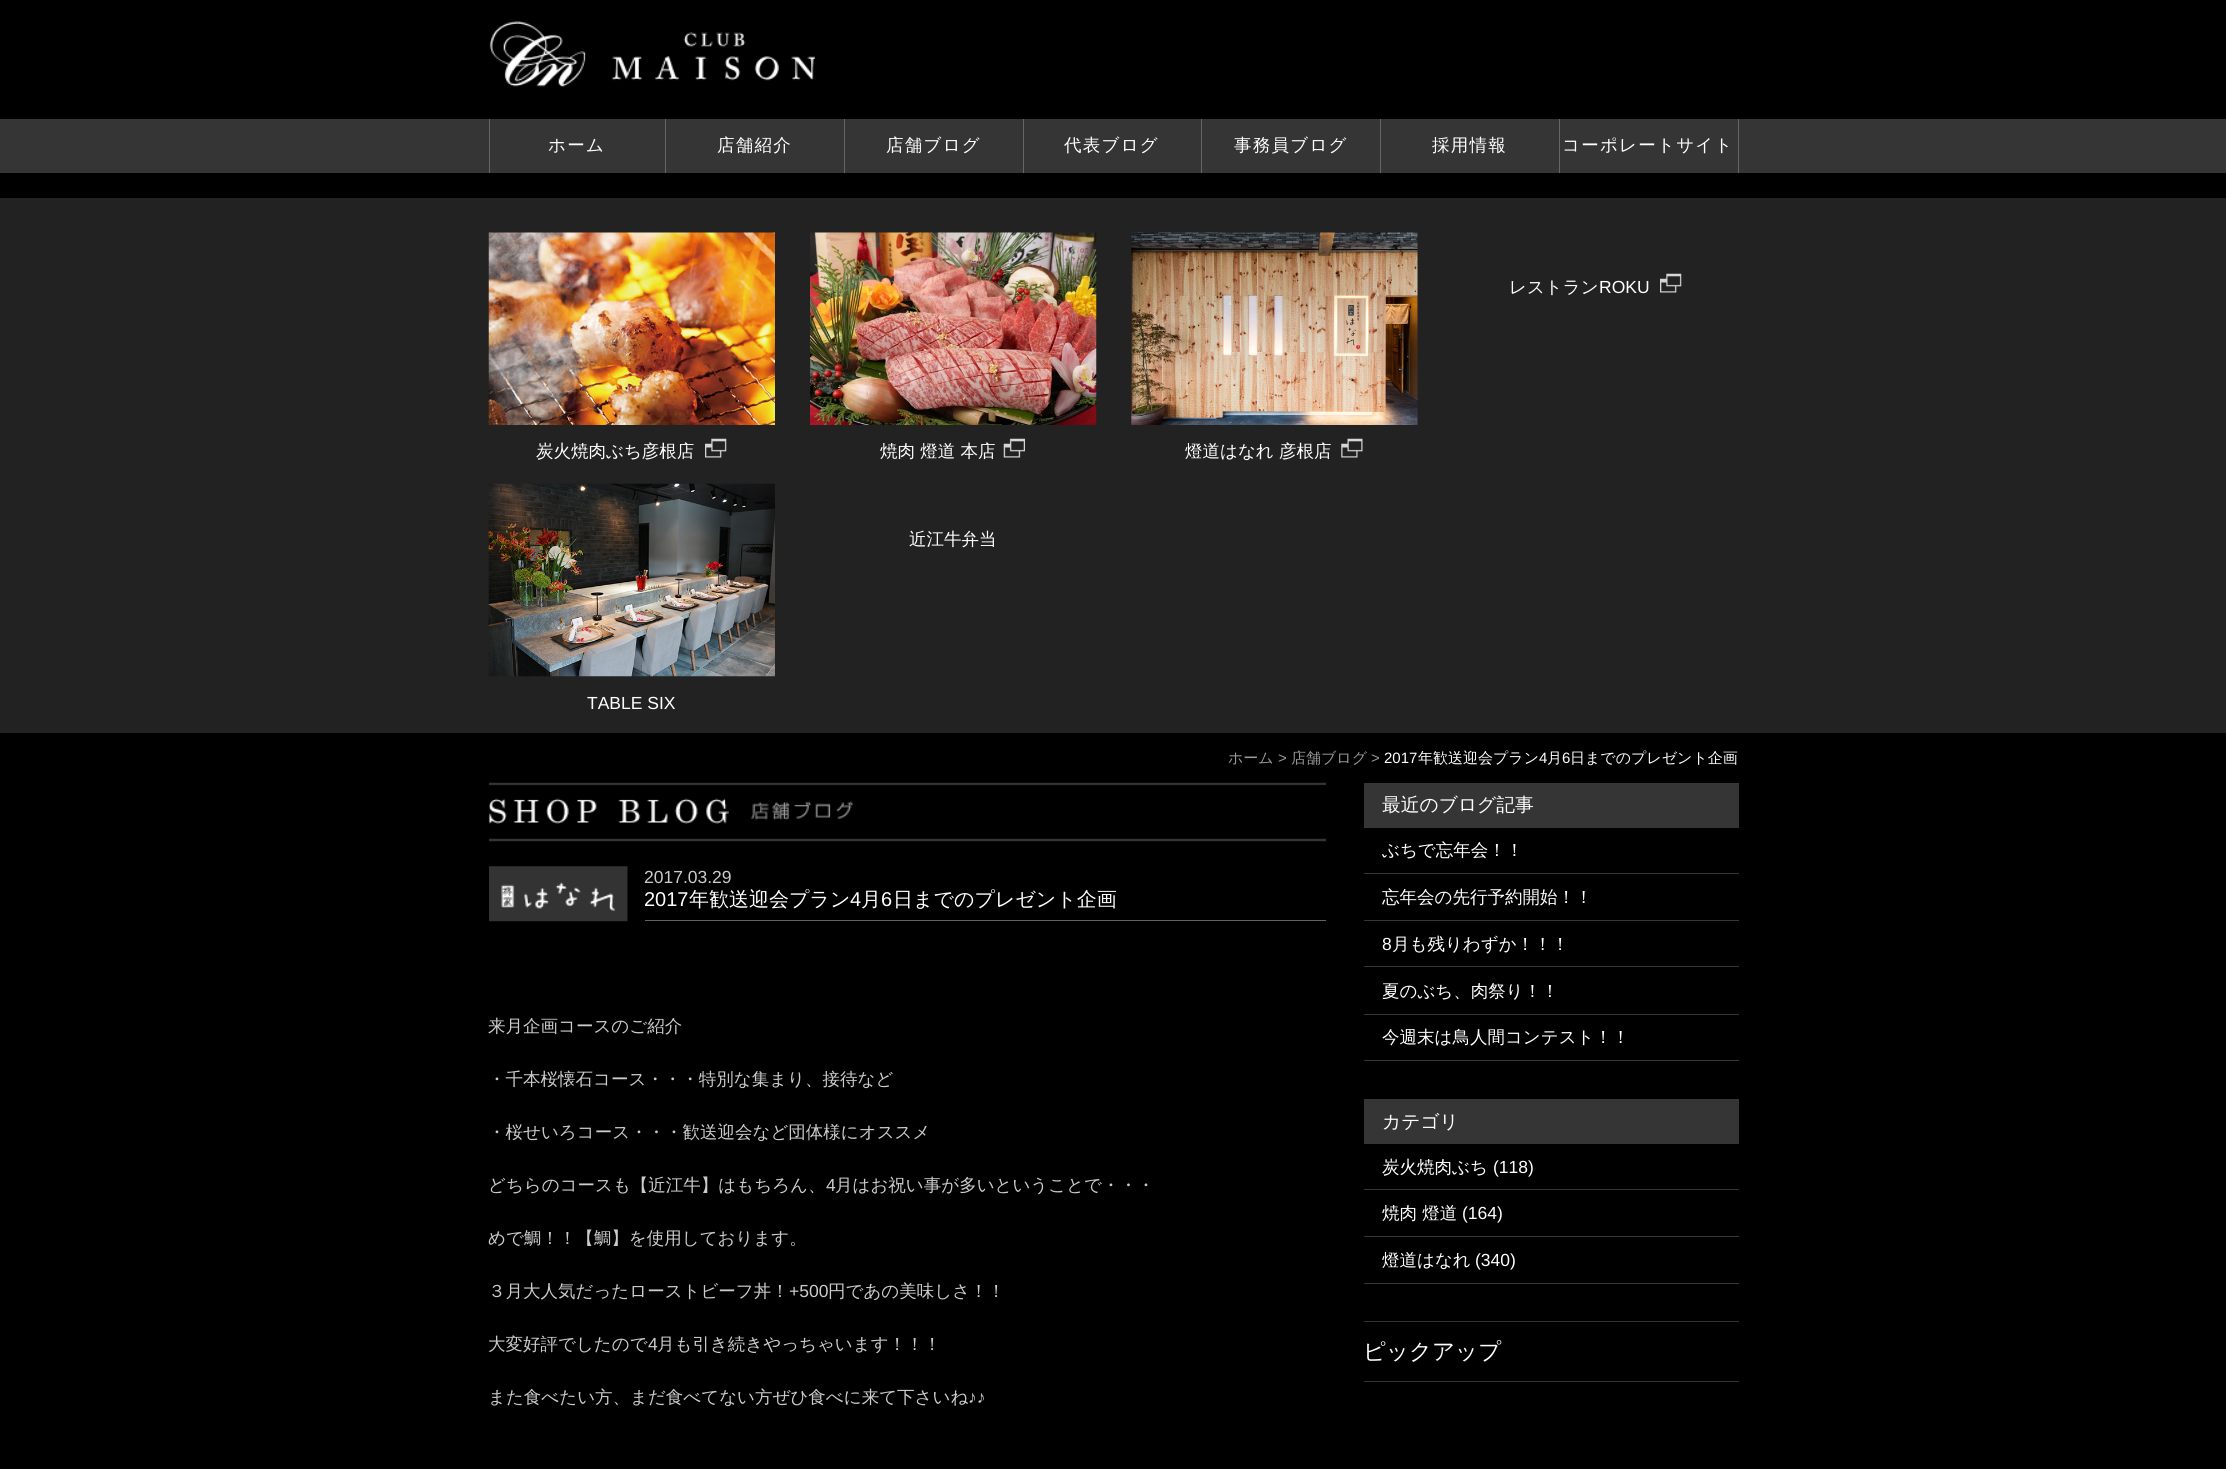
#include <cairo.h>
#include <math.h>
#include <stddef.h>

static cairo_t *c;
static void C(unsigned color){cairo_set_source_rgb(c, (color >> 16) / 255.0, (color >> 8 & 255) / 255.0, (color & 255) / 255.0);}
static void F(const char *family, double size, int italic, int bold){cairo_select_font_face(c, family, italic ? CAIRO_FONT_SLANT_ITALIC : CAIRO_FONT_SLANT_NORMAL,bold ? CAIRO_FONT_WEIGHT_BOLD : CAIRO_FONT_WEIGHT_NORMAL);cairo_set_font_size(c, size);}
static void T(double x, double y, const char *s){cairo_move_to(c, x, y);cairo_show_text(c, s);}
static void L(double x, double y, const char *s, double letter, double word){cairo_move_to(c, x, y);while (*s) {char ch[5] = {0};int n = 0;do ch[n++] = *s++; while ((*s & 0xC0) == 0x80);cairo_show_text(c, ch);cairo_rel_move_to(c, letter + word * (*ch == ' '), 0);}}
static void R(double x, double y, double w, double h){cairo_rectangle(c, x, y, w, h);cairo_fill(c);}
static void I(const char *path, double x, double y, double w, double h){cairo_surface_t *image = cairo_image_surface_create_from_png(path);cairo_save(c);cairo_set_source_surface(c, image, x, y);cairo_rectangle(c, x, y, w, h);cairo_fill(c);cairo_restore(c);cairo_surface_destroy(image);}
int main(void) {
cairo_surface_t *surface = cairo_image_surface_create(CAIRO_FORMAT_RGB24, 2226, 1469);
c = cairo_create(surface);
cairo_font_options_t *options = cairo_font_options_create();
cairo_font_options_set_hint_metrics(options, CAIRO_HINT_METRICS_OFF);
cairo_font_options_set_hint_style(options, CAIRO_HINT_STYLE_NONE);
cairo_set_font_options(c, options);
cairo_set_miter_limit(c, 4);
C(0x000000);
cairo_paint(c);
I("1.png",489,21,326,66);
C(0x353535);
R(0,119,2226,54);
C(0x666666);
R(665,119,1,54);
R(489,119,1,54);
F("WenQuanYi Zen Hei Medium",17.5,0,0);
C(0xffffff);
L(548,151,"ホーム",1.25,0);
C(0x666666);
R(844,119,1,54);
C(0xffffff);
L(717,151,"店舗紹介",1.25,0);
C(0x666666);
R(1023,119,1,54);
C(0xffffff);
L(886,151,"店舗ブログ",1.25,0);
C(0x666666);
R(1201,119,1,54);
C(0xffffff);
L(1064,151,"代表ブログ",1.25,0);
C(0x666666);
R(1380,119,1,54);
C(0xffffff);
L(1234,151,"事務員ブログ",1.25,0);
C(0x666666);
R(1559,119,1,54);
C(0xffffff);
L(1432,151,"採用情報",1.25,0);
C(0x666666);
R(1738,119,1,54);
C(0xffffff);
L(1562,151,"コーポレートサイト",1.25,0);
C(0x222222);
R(0,198,2226,535);
C(0xffffff);
T(1509,293,"レストラン");
F("Liberation Sans",17.5,0,0);
T(1599,293,"ROKU");
I("2.png",1660,273,22,20);
I("3.png",488,232,287,193);
F("WenQuanYi Zen Hei Medium",17.5,0,0);
T(536,457,"炭火焼肉ぶち彦根店");
I("4.png",705,438,22,20);
I("5.png",810,232,287,193);
T(880,457,"焼肉 燈道 本店");
I("6.png",1003,438,22,20);
I("7.png",1131,232,287,193);
T(1185,457,"燈道はなれ 彦根店");
I("8.png",1341,438,22,20);
T(909,545,"近江牛弁当");
I("9.png",488,483,287,194);
F("Liberation Sans",17.5,0,0);
T(587,709,"TABLE SIX");
F("WenQuanYi Zen Hei Medium",15,0,0);
C(0x999999);
T(1228,763,"ホーム");
F("Liberation Sans",15,0,0);
T(1278,763,">");
F("WenQuanYi Zen Hei Medium",15,0,0);
T(1291,763,"店舗ブログ");
F("Liberation Sans",15,0,0);
T(1371,763,">");
C(0xffffff);
T(1384,763,"2017");
F("WenQuanYi Zen Hei Medium",15,0,0);
T(1418,763,"年歓送迎会プラン");
F("Liberation Sans",15,0,0);
T(1539,763,"4");
F("WenQuanYi Zen Hei Medium",15,0,0);
T(1547,763,"月");
F("Liberation Sans",15,0,0);
T(1562,763,"6");
F("WenQuanYi Zen Hei Medium",15,0,0);
T(1570,763,"日までのプレゼント企画");
I("10.png",488,782,838,60);
I("11.png",489,866,139,56);
F("Liberation Sans",17.5,0,0);
C(0xcccccc);
T(644,883,"2017.03.29");
C(0x636363);
R(645,920,681,1);
F("Liberation Sans",20,0,0);
C(0xffffff);
T(644,906,"2017");
F("WenQuanYi Zen Hei Medium",20,0,0);
T(689,906,"年歓送迎会プラン");
F("Liberation Sans",20,0,0);
T(850,906,"4");
F("WenQuanYi Zen Hei Medium",20,0,0);
T(861,906,"月");
F("Liberation Sans",20,0,0);
T(881,906,"6");
F("WenQuanYi Zen Hei Medium",20,0,0);
T(893,906,"日までのプレゼント企画");
F("WenQuanYi Zen Hei Medium",17.5,0,0);
C(0xcccccc);
T(488,1032,"来月企画コースのご紹介");
T(488,1085,"・千本桜懐石コース・・・特別な集まり、接待など");
T(488,1138,"・桜せいろコース・・・歓送迎会など団体様にオススメ");
T(488,1191,"どちらのコースも【近江牛】はもちろん、");
F("Liberation Sans",17.5,0,0);
T(826,1191,"4");
F("WenQuanYi Zen Hei Medium",17.5,0,0);
T(835,1191,"月はお祝い事が多いということで・・・");
T(488,1244,"めで鯛！！【鯛】を使用しております。");
T(488,1297,"３月大人気だったローストビーフ丼！");
F("Liberation Sans",17.5,0,0);
T(789,1297,"+500");
F("WenQuanYi Zen Hei Medium",17.5,0,0);
T(828,1297,"円であの美味しさ！！");
T(488,1350,"大変好評でしたので");
F("Liberation Sans",17.5,0,0);
T(648,1350,"4");
F("WenQuanYi Zen Hei Medium",17.5,0,0);
T(657,1350,"月も引き続きやっちゃいます！！！");
T(488,1403,"また食べたい方、まだ食べてない方ぜひ食べに来て下さいね");
F("Liberation Sans",17.5,0,0);
T(968,1403,"♪♪");
C(0x353535);
R(1364,783,375,45);
F("WenQuanYi Zen Hei Medium",18.75,0,0);
C(0xffffff);
T(1382,811,"最近のブログ記事");
C(0x353535);
R(1364,873,375,1);
F("WenQuanYi Zen Hei Medium",17.5,0,0);
C(0xffffff);
T(1382,856,"ぶちで忘年会！！");
C(0x353535);
R(1364,920,375,1);
C(0xffffff);
T(1382,903,"忘年会の先行予約開始！！");
C(0x353535);
R(1364,966,375,1);
F("Liberation Sans",17.5,0,0);
C(0xffffff);
T(1382,950,"8");
F("WenQuanYi Zen Hei Medium",17.5,0,0);
T(1392,950,"月も残りわずか！！！");
C(0x353535);
R(1364,1014,375,1);
C(0xffffff);
T(1382,997,"夏のぶち、肉祭り！！");
C(0x353535);
R(1364,1060,375,1);
C(0xffffff);
T(1382,1043,"今週末は鳥人間コンテスト！！");
C(0x353535);
R(1364,1099,375,45);
F("WenQuanYi Zen Hei Medium",18.75,0,0);
C(0xffffff);
T(1382,1128,"カテゴリ");
C(0x353535);
R(1364,1189,375,1);
F("WenQuanYi Zen Hei Medium",17.5,0,0);
C(0xffffff);
T(1382,1173,"炭火焼肉ぶち");
F("Liberation Sans",17.5,0,0);
T(1493,1173,"(118)");
C(0x353535);
R(1364,1236,375,1);
F("WenQuanYi Zen Hei Medium",17.5,0,0);
C(0xffffff);
T(1382,1219,"焼肉 燈道");
F("Liberation Sans",17.5,0,0);
T(1462,1219,"(164)");
C(0x353535);
R(1364,1283,375,1);
F("WenQuanYi Zen Hei Medium",17.5,0,0);
C(0xffffff);
T(1382,1266,"燈道はなれ");
F("Liberation Sans",17.5,0,0);
T(1475,1266,"(340)");
C(0x333333);
R(1364,1321,375,1);
R(1364,1381,375,1);
F("WenQuanYi Zen Hei Medium",22.5,0,0);
C(0xffffff);
T(1363,1359,"ピックアップ");
cairo_surface_write_to_png(surface, "o.png");
cairo_font_options_destroy(options);
cairo_destroy(c);
cairo_surface_destroy(surface);
return 0;
}
